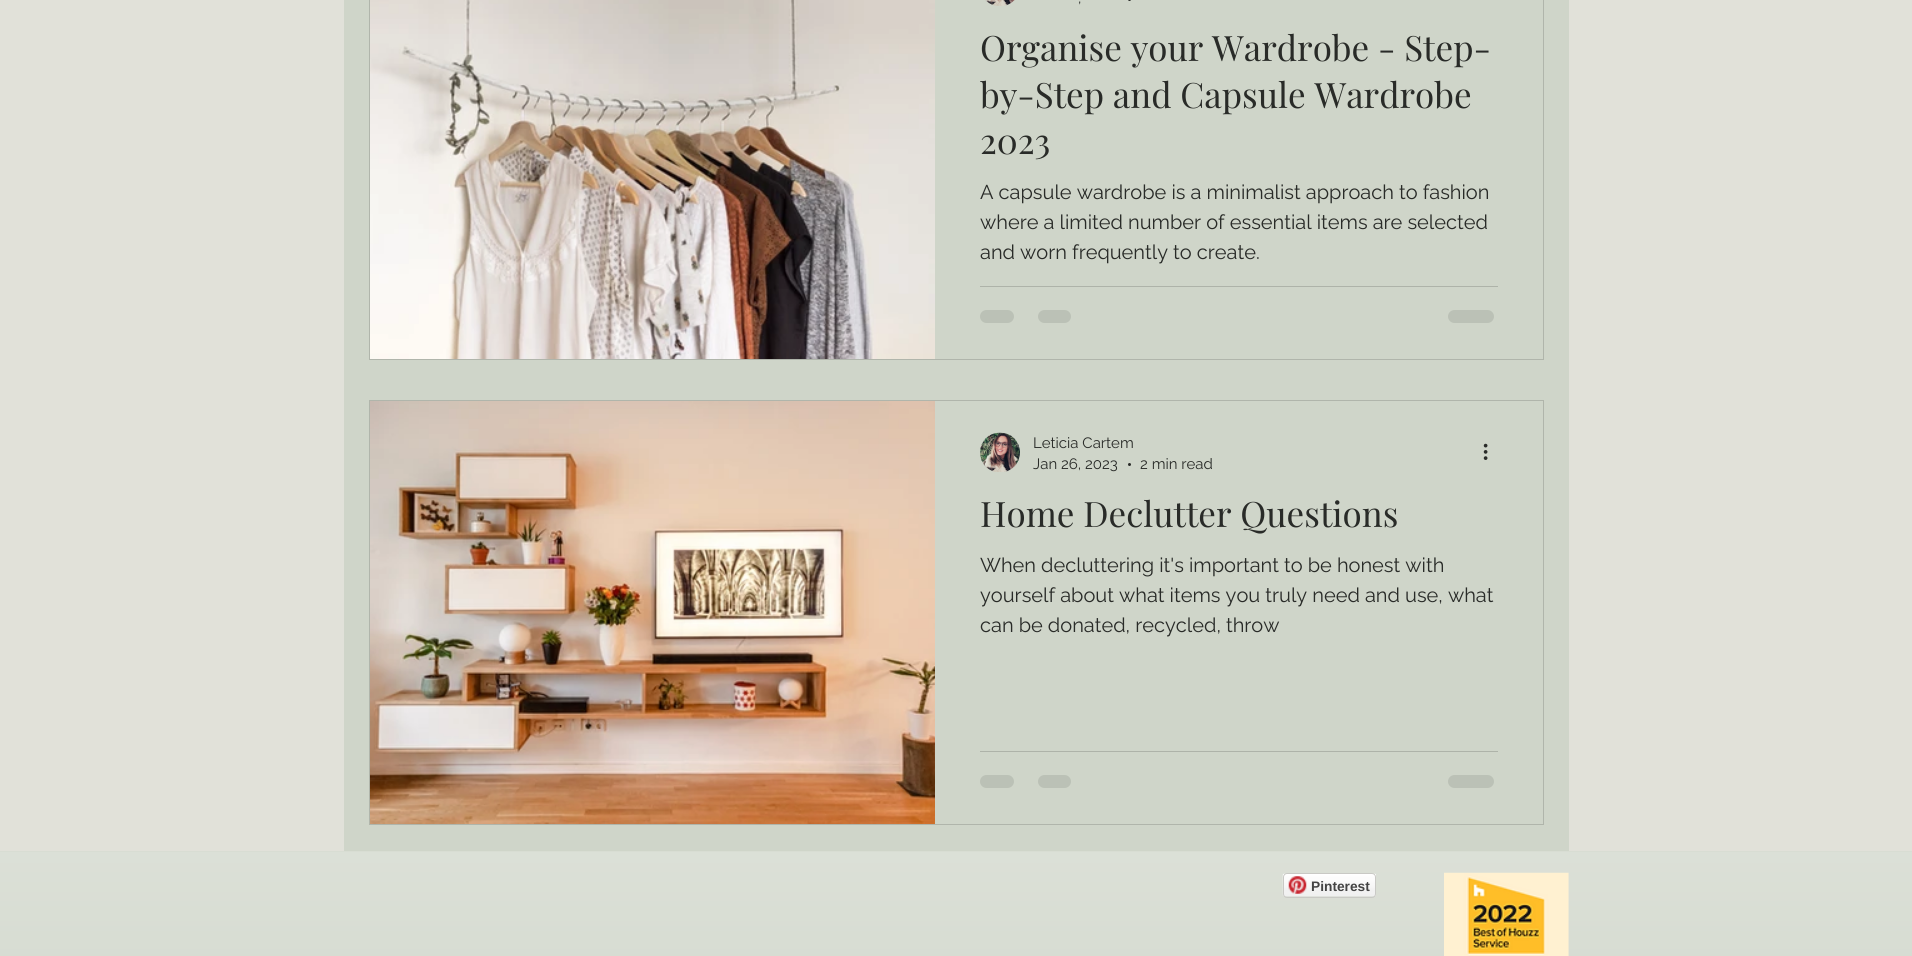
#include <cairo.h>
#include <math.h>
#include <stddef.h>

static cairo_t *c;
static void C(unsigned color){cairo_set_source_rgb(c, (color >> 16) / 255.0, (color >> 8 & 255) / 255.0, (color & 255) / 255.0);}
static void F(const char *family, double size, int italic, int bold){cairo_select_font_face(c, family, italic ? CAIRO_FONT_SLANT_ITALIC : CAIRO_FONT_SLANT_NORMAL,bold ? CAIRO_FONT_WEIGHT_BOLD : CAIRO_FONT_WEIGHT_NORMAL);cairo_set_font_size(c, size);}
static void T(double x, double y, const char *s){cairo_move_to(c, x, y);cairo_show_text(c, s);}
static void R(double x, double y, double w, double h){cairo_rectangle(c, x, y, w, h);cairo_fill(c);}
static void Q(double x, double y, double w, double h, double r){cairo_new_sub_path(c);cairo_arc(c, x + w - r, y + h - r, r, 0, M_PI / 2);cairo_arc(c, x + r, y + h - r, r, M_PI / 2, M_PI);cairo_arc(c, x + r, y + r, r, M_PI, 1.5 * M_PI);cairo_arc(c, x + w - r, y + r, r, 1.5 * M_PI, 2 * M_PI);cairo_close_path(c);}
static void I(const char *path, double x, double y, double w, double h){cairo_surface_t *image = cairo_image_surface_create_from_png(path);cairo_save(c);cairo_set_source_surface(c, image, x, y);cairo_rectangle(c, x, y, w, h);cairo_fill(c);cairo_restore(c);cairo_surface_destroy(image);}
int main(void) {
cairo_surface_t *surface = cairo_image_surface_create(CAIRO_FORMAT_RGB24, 1912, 956);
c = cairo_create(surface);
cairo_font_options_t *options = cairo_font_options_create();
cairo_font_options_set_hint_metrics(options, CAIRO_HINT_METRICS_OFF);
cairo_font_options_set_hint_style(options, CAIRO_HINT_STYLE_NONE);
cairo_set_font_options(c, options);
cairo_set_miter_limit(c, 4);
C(0xe1e1d9);
cairo_paint(c);
C(0xcfd5c9);
R(344,0,1225,851);
cairo_rectangle(c,369.5,-.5,1174,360);
C(0xb0b5ab);
cairo_set_line_width(c,1);
cairo_stroke(c);
I("1.png",370,0,565,359);
I("2.png",985,0,30,6);
C(0x292b28);
cairo_arc(c,1129.5,-.5,1.5,0,2 * M_PI);
cairo_fill(c);
F("Raleway",15,0,0);
T(1078,3,",");
F("Playfair Display",35,0,0);
T(980,61,"Organise your Wardrobe - Step-");
T(980,108,"by-Step and Capsule Wardrobe");
T(980,154,"2023");
F("Raleway",20,0,0);
T(980,199,"A capsule wardrobe is a minimalist approach to fashion");
T(980,229,"where a limited number of essential items are selected");
T(980,259,"and worn frequently to create.");
C(0xaeb3a9);
R(980,286,518,1);
C(0xbbc1b6);
Q(980,310,34,13,6.5);
cairo_fill(c);
Q(1038,310,33,13,6.5);
cairo_fill(c);
Q(1448,310,46,13,6.5);
cairo_fill(c);
cairo_rectangle(c,369.5,400.5,1174,424);
C(0xb0b5ab);
cairo_stroke(c);
I("3.png",370,401,565,423);
I("4.png",980,432,40,40);
F("Raleway",15,0,0);
C(0x292b28);
T(1033,448,"Leticia Cartem");
T(1033,469,"Jan 26, 2023");
cairo_new_path(c);
cairo_arc(c,1129.5,464.5,1.5,0,2 * M_PI);
cairo_fill(c);
T(1140,469,"2 min read");
I("5.png",1483,443,5,17);
F("Playfair Display",35,0,0);
T(980,527,"Home Declutter Questions");
F("Raleway",20,0,0);
T(980,572,"When decluttering it's important to be honest with");
T(980,602,"yourself about what items you truly need and use, what");
T(980,632,"can be donated, recycled, throw");
C(0xaeb3a9);
R(980,751,518,1);
C(0xbbc1b6);
Q(980,775,34,13,6.5);
cairo_fill(c);
Q(1038,775,33,13,6.5);
cairo_fill(c);
Q(1448,775,46,13,6.5);
cairo_fill(c);
C(0xcfd5c9);
R(0,851,1912,105);
I("6.png",0,851,1912,105);
I("8.png",1282,873,94,24);
Q(1283.5,873.5,92,24,3.5);
C(0xc9c9c5);
cairo_stroke(c);
I("7.png",1288,876,19,18);
F("Liberation Sans",13.75,0,1);
C(0x444444);
T(1311,891,"Pinterest");
I("9.png",1444,872,125,84);
cairo_surface_write_to_png(surface, "o.png");
cairo_font_options_destroy(options);
cairo_destroy(c);
cairo_surface_destroy(surface);
return 0;
}
